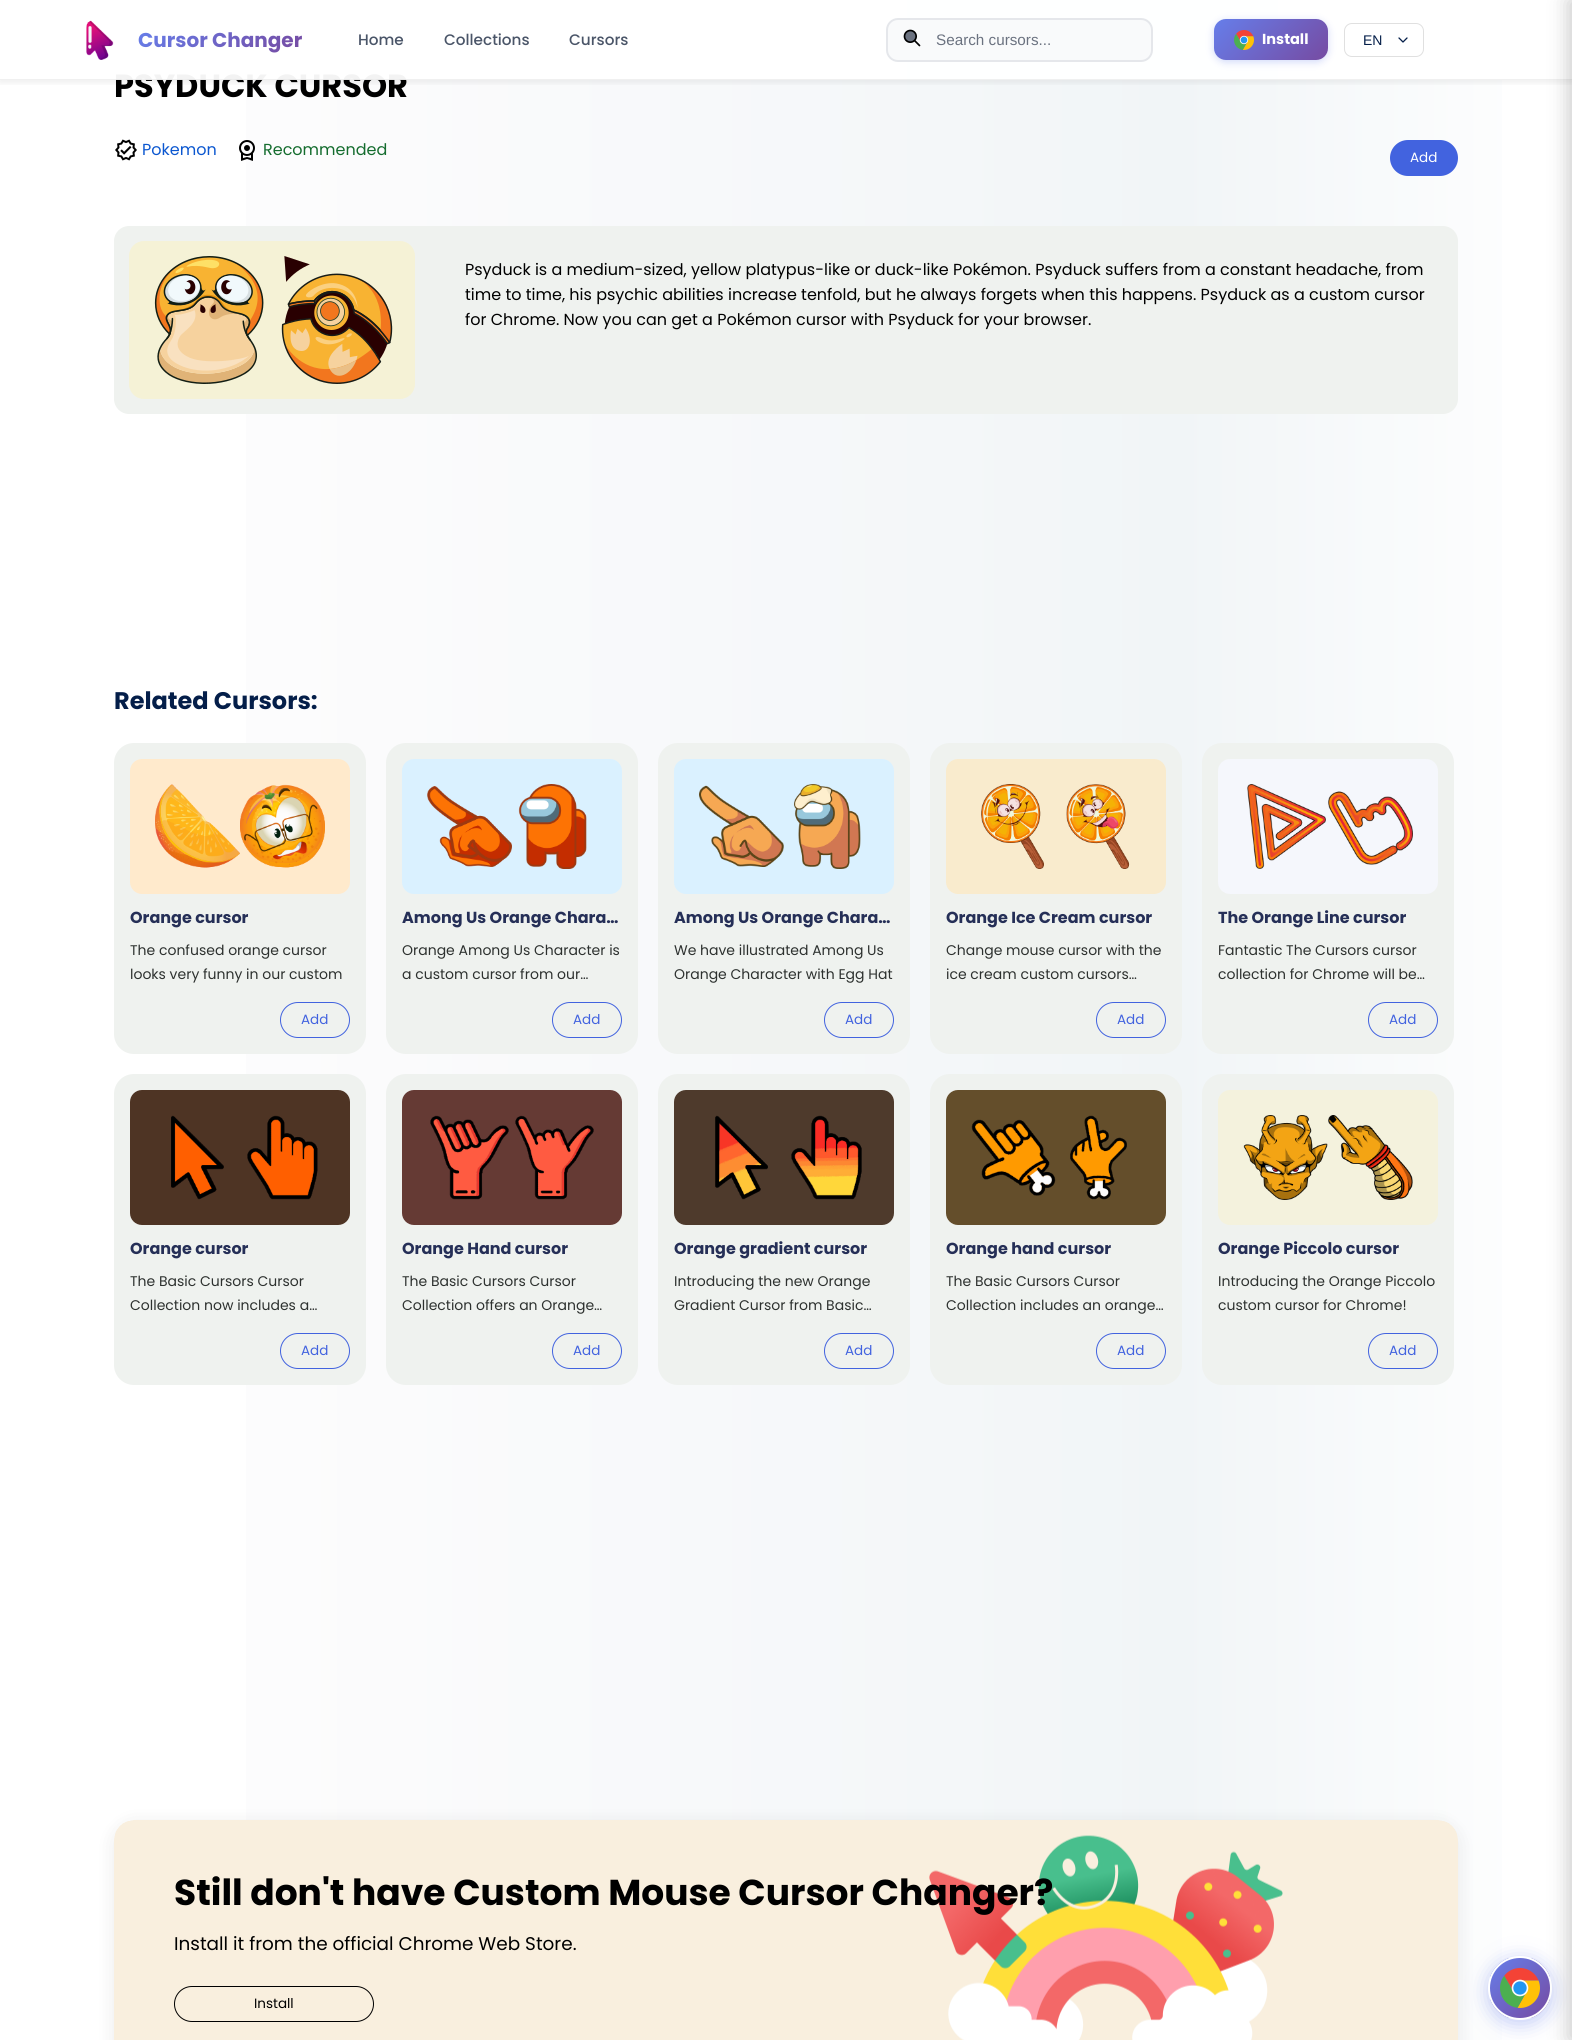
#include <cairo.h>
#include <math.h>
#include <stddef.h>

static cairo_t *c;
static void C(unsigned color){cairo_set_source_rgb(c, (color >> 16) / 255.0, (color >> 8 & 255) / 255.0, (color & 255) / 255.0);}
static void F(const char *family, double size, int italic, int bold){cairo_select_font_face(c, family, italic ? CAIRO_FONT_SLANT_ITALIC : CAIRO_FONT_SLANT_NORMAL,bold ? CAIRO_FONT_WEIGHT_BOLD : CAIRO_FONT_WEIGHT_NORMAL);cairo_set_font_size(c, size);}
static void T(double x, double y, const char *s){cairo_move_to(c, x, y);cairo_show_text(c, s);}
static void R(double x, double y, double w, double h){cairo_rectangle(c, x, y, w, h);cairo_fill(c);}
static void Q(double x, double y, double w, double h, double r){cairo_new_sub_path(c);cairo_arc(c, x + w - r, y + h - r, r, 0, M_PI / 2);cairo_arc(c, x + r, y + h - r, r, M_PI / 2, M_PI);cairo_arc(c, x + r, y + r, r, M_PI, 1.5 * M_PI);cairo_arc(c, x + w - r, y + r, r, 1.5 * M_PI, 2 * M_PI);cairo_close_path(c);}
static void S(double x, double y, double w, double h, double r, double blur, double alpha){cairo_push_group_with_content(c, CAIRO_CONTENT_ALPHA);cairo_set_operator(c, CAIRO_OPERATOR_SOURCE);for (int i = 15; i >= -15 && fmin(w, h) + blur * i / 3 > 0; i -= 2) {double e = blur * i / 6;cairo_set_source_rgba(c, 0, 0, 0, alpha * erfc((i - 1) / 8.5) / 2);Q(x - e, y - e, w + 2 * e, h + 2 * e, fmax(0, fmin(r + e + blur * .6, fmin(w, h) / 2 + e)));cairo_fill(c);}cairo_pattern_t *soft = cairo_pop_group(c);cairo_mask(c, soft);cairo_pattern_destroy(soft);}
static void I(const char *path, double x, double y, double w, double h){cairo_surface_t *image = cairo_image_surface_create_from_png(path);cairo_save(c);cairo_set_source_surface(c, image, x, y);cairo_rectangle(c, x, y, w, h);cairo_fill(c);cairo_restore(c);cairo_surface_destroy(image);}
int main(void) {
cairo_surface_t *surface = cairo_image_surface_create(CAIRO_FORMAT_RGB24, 1572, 2040);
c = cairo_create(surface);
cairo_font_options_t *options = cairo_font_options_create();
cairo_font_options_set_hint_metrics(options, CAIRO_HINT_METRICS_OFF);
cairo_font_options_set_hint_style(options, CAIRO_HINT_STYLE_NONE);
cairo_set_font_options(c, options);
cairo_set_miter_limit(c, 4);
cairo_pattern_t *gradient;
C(0xffffff);
cairo_paint(c);
gradient = cairo_pattern_create_linear(0,1204,1572,1204);
cairo_pattern_add_color_stop_rgba(gradient,0,1,1,1,1);
cairo_pattern_add_color_stop_rgba(gradient,.25,0.984,0.984,0.988,1);
cairo_pattern_add_color_stop_rgba(gradient,.5,0.965,0.973,0.98,1);
cairo_pattern_add_color_stop_rgba(gradient,.75,0.945,0.961,0.969,1);
cairo_pattern_add_color_stop_rgba(gradient,1,1,1,1,1);
cairo_set_source(c,gradient);
cairo_pattern_destroy(gradient);
R(246,0,1256,2040);
cairo_save(c);
cairo_rectangle(c,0,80,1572,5);
cairo_clip(c);
C(0x000000);
S(0,2,1572,80,0,4,.08);
cairo_restore(c);
F("Poppins",32,0,1);
C(0x000000);
T(114,97,"PSYDUCK CURSOR");
cairo_set_source_rgba(c,1,1,1,0.95);
R(115,0,1387,80);
cairo_set_source_rgba(c,0,0,0,0.06);
R(0,79,1572,1);
I("1.png",86,20,28,40);
F("Poppins",20,0,1);
gradient = cairo_pattern_create_linear(174,-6.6,266,86);
cairo_pattern_add_color_stop_rgba(gradient,0,0.4,0.494,0.918,1);
cairo_pattern_add_color_stop_rgba(gradient,1,0.463,0.294,0.635,1);
cairo_set_source(c,gradient);
cairo_pattern_destroy(gradient);
T(138,47,"Cursor Changer");
F("Poppins Medium",15.25,0,0);
C(0x4a5568);
T(358,45,"Home");
T(444,45,"Collections");
T(569,45,"Cursors");
C(0xf9fafb);
Q(887,19,265,42,11);
cairo_fill_preserve(c);
C(0xe5e7eb);
cairo_stroke(c);
I("2.png",903,29,18,18);
F("Liberation Sans",15.25,0,0);
C(0x6b7280);
T(936,45,"Search cursors...");
C(0x667eea);
S(1214,21,114,41,12,4,.3);
gradient = cairo_pattern_create_linear(1232,.8,1310,78);
cairo_pattern_add_color_stop_rgba(gradient,0,0.4,0.494,0.918,1);
cairo_pattern_add_color_stop_rgba(gradient,1,0.463,0.294,0.635,1);
cairo_set_source(c,gradient);
cairo_pattern_destroy(gradient);
Q(1214,19,114,41,12);
cairo_fill(c);
I("3.png",1234,30,20,20);
F("Poppins",14.5,0,1);
C(0xffffff);
T(1262,44,"Install");
Q(1344.5,23.5,79,33,7.5);
C(0xe0e0e0);
cairo_set_line_width(c,1);
cairo_stroke(c);
F("Liberation Sans",14,0,0);
C(0x041e49);
T(1363,45,"EN");
cairo_new_path(c);
cairo_move_to(c,1399,38);
cairo_line_to(c,1403,42);
cairo_line_to(c,1407,38);
cairo_set_line_width(c,1.3);
cairo_set_line_cap(c,CAIRO_LINE_CAP_ROUND);
cairo_set_line_join(c,CAIRO_LINE_JOIN_ROUND);
cairo_stroke(c);
C(0x000000);
S(114,1824,1344,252,20,10,.08);
I("18.png",114,1820,1344,220);
C(0x667eea);
S(1488,1960,64,64,32,10,.4);
cairo_save(c);
Q(1488,1956,64,64,32);
cairo_clip(c);
gradient = cairo_pattern_create_linear(1490,1958,1550,2018);
cairo_pattern_add_color_stop_rgba(gradient,0,0.4,0.494,0.918,1);
cairo_pattern_add_color_stop_rgba(gradient,1,0.463,0.294,0.635,1);
cairo_set_source(c,gradient);
cairo_pattern_destroy(gradient);
R(1490,1958,60,60);
cairo_restore(c);
cairo_arc(c,1520,1988,31,0,2 * M_PI);
C(0xffffff);
cairo_set_line_width(c,2);
cairo_set_line_cap(c,CAIRO_LINE_CAP_BUTT);
cairo_set_line_join(c,CAIRO_LINE_JOIN_MITER);
cairo_stroke(c);
I("4.png",1500,1968,40,40);
C(0x000000);
S(1568,0,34,2040,0,10,.2);
I("5.png",115,139,22,22);
F("Poppins",16,0,0);
C(0x0b57d0);
T(142,155,"Pokemon");
I("6.png",239,140,16,21);
C(0x146c2e);
T(263,155,"Recommended");
C(0x4263df);
Q(1390,140,68,36,18);
cairo_fill(c);
F("Poppins",13.5,0,0);
C(0xffffff);
T(1410,162,"Add");
C(0xeff2ef);
Q(114,226,1344,188,15);
cairo_fill(c);
C(0xf5f2d6);
Q(129,241,286,158,15);
cairo_fill(c);
I("7.png",154,256,239,128);
F("Poppins",16,0,0);
C(0x000000);
T(465,275,"Psyduck is a medium-sized, yellow platypus-like or duck-like Pokémon. Psyduck suffers from a constant headache, from");
T(465,300,"time to time, his psychic abilities increase tenfold, but he always forgets when this happens. Psyduck as a custom cursor");
T(465,325,"for Chrome. Now you can get a Pokémon cursor with Psyduck for your browser.");
F("Poppins",24,0,1);
C(0x041e49);
T(114,709,"Related Cursors:");
C(0xeff2ef);
Q(114,743,252,311,20);
cairo_fill(c);
C(0xffeacc);
Q(130,759,220,135,12);
cairo_fill(c);
I("8.png",155,784,170,84);
F("Poppins",16,0,1);
C(0x252f57);
T(130,923,"Orange cursor");
F("Poppins",14,0,0);
C(0x2d312f);
T(130,955,"The confused orange cursor");
T(130,979,"looks very funny in our custom");
Q(280.5,1002.5,69,35,17.5);
C(0x4263df);
cairo_set_line_width(c,1);
cairo_stroke(c);
F("Poppins",13.5,0,0);
T(301,1024,"Add");
C(0xeff2ef);
Q(386,743,252,311,20);
cairo_fill(c);
C(0xdaf1ff);
Q(402,759,220,135,12);
cairo_fill(c);
I("9.png",427,784,160,85);
F("Poppins",16,0,1);
C(0x252f57);
T(402,923,"Among Us Orange Chara…");
F("Poppins",14,0,0);
C(0x2d312f);
T(402,955,"Orange Among Us Character is");
T(402,979,"a custom cursor from our…");
Q(552.5,1002.5,69,35,17.5);
C(0x4263df);
cairo_stroke(c);
F("Poppins",13.5,0,0);
T(573,1024,"Add");
C(0xeff2ef);
Q(658,743,252,311,20);
cairo_fill(c);
C(0xdaf1ff);
Q(674,759,220,135,12);
cairo_fill(c);
I("10.png",699,784,162,85);
F("Poppins",16,0,1);
C(0x252f57);
T(674,923,"Among Us Orange Chara…");
F("Poppins",14,0,0);
C(0x2d312f);
T(674,955,"We have illustrated Among Us");
T(674,979,"Orange Character with Egg Hat");
Q(824.5,1002.5,69,35,17.5);
C(0x4263df);
cairo_stroke(c);
F("Poppins",13.5,0,0);
T(845,1024,"Add");
C(0xeff2ef);
Q(930,743,252,311,20);
cairo_fill(c);
C(0xf9ebcd);
Q(946,759,220,135,12);
cairo_fill(c);
I("11.png",981,784,149,85);
F("Poppins",16,0,1);
C(0x252f57);
T(946,923,"Orange Ice Cream cursor");
F("Poppins",14,0,0);
C(0x2d312f);
T(946,955,"Change mouse cursor with the");
T(946,979,"ice cream custom cursors…");
Q(1096.5,1002.5,69,35,17.5);
C(0x4263df);
cairo_stroke(c);
F("Poppins",13.5,0,0);
T(1117,1024,"Add");
C(0xeff2ef);
Q(1202,743,252,311,20);
cairo_fill(c);
C(0xf5f7fc);
Q(1218,759,220,135,12);
cairo_fill(c);
I("12.png",1247,784,166,85);
F("Poppins",16,0,1);
C(0x252f57);
T(1218,923,"The Orange Line cursor");
F("Poppins",14,0,0);
C(0x2d312f);
T(1218,955,"Fantastic The Cursors cursor");
T(1218,979,"collection for Chrome will be…");
Q(1368.5,1002.5,69,35,17.5);
C(0x4263df);
cairo_stroke(c);
F("Poppins",13.5,0,0);
T(1389,1024,"Add");
C(0xeff2ef);
Q(114,1074,252,311,20);
cairo_fill(c);
C(0x4e3424);
Q(130,1090,220,135,12);
cairo_fill(c);
I("13.png",171,1115,147,85);
F("Poppins",16,0,1);
C(0x252f57);
T(130,1254,"Orange cursor");
F("Poppins",14,0,0);
C(0x2d312f);
T(130,1286,"The Basic Cursors Cursor");
T(130,1310,"Collection now includes a…");
Q(280.5,1333.5,69,35,17.5);
C(0x4263df);
cairo_stroke(c);
F("Poppins",13.5,0,0);
T(301,1355,"Add");
C(0xeff2ef);
Q(386,1074,252,311,20);
cairo_fill(c);
C(0x653a34);
Q(402,1090,220,135,12);
cairo_fill(c);
I("14.png",430,1115,164,85);
F("Poppins",16,0,1);
C(0x252f57);
T(402,1254,"Orange Hand cursor");
F("Poppins",14,0,0);
C(0x2d312f);
T(402,1286,"The Basic Cursors Cursor");
T(402,1310,"Collection offers an Orange…");
Q(552.5,1333.5,69,35,17.5);
C(0x4263df);
cairo_stroke(c);
F("Poppins",13.5,0,0);
T(573,1355,"Add");
C(0xeff2ef);
Q(658,1074,252,311,20);
cairo_fill(c);
C(0x4e3a2c);
Q(674,1090,220,135,12);
cairo_fill(c);
I("15.png",715,1115,147,85);
F("Poppins",16,0,1);
C(0x252f57);
T(674,1254,"Orange gradient cursor");
F("Poppins",14,0,0);
C(0x2d312f);
T(674,1286,"Introducing the new Orange");
T(674,1310,"Gradient Cursor from Basic…");
Q(824.5,1333.5,69,35,17.5);
C(0x4263df);
cairo_stroke(c);
F("Poppins",13.5,0,0);
T(845,1355,"Add");
C(0xeff2ef);
Q(930,1074,252,311,20);
cairo_fill(c);
C(0x644e2b);
Q(946,1090,220,135,12);
cairo_fill(c);
I("16.png",971,1115,156,85);
F("Poppins",16,0,1);
C(0x252f57);
T(946,1254,"Orange hand cursor");
F("Poppins",14,0,0);
C(0x2d312f);
T(946,1286,"The Basic Cursors Cursor");
T(946,1310,"Collection includes an orange…");
Q(1096.5,1333.5,69,35,17.5);
C(0x4263df);
cairo_stroke(c);
F("Poppins",13.5,0,0);
T(1117,1355,"Add");
C(0xeff2ef);
Q(1202,1074,252,311,20);
cairo_fill(c);
C(0xf4f2dd);
Q(1218,1090,220,135,12);
cairo_fill(c);
I("17.png",1243,1115,170,85);
F("Poppins",16,0,1);
C(0x252f57);
T(1218,1254,"Orange Piccolo cursor");
F("Poppins",14,0,0);
C(0x2d312f);
T(1218,1286,"Introducing the Orange Piccolo");
T(1218,1310,"custom cursor for Chrome!");
Q(1368.5,1333.5,69,35,17.5);
C(0x4263df);
cairo_stroke(c);
F("Poppins",13.5,0,0);
T(1389,1355,"Add");
F("Poppins",36,0,1);
C(0x000000);
T(174,1905,"Still don't have Custom Mouse Cursor Changer?");
F("Poppins",18.4,0,0);
T(174,1950,"Install it from the official Chrome Web Store.");
Q(174.5,1986.5,199,35,17.5);
cairo_stroke(c);
F("Poppins",13.5,0,0);
T(254,2008,"Install");
cairo_surface_write_to_png(surface, "o.png");
cairo_font_options_destroy(options);
cairo_destroy(c);
cairo_surface_destroy(surface);
return 0;
}
